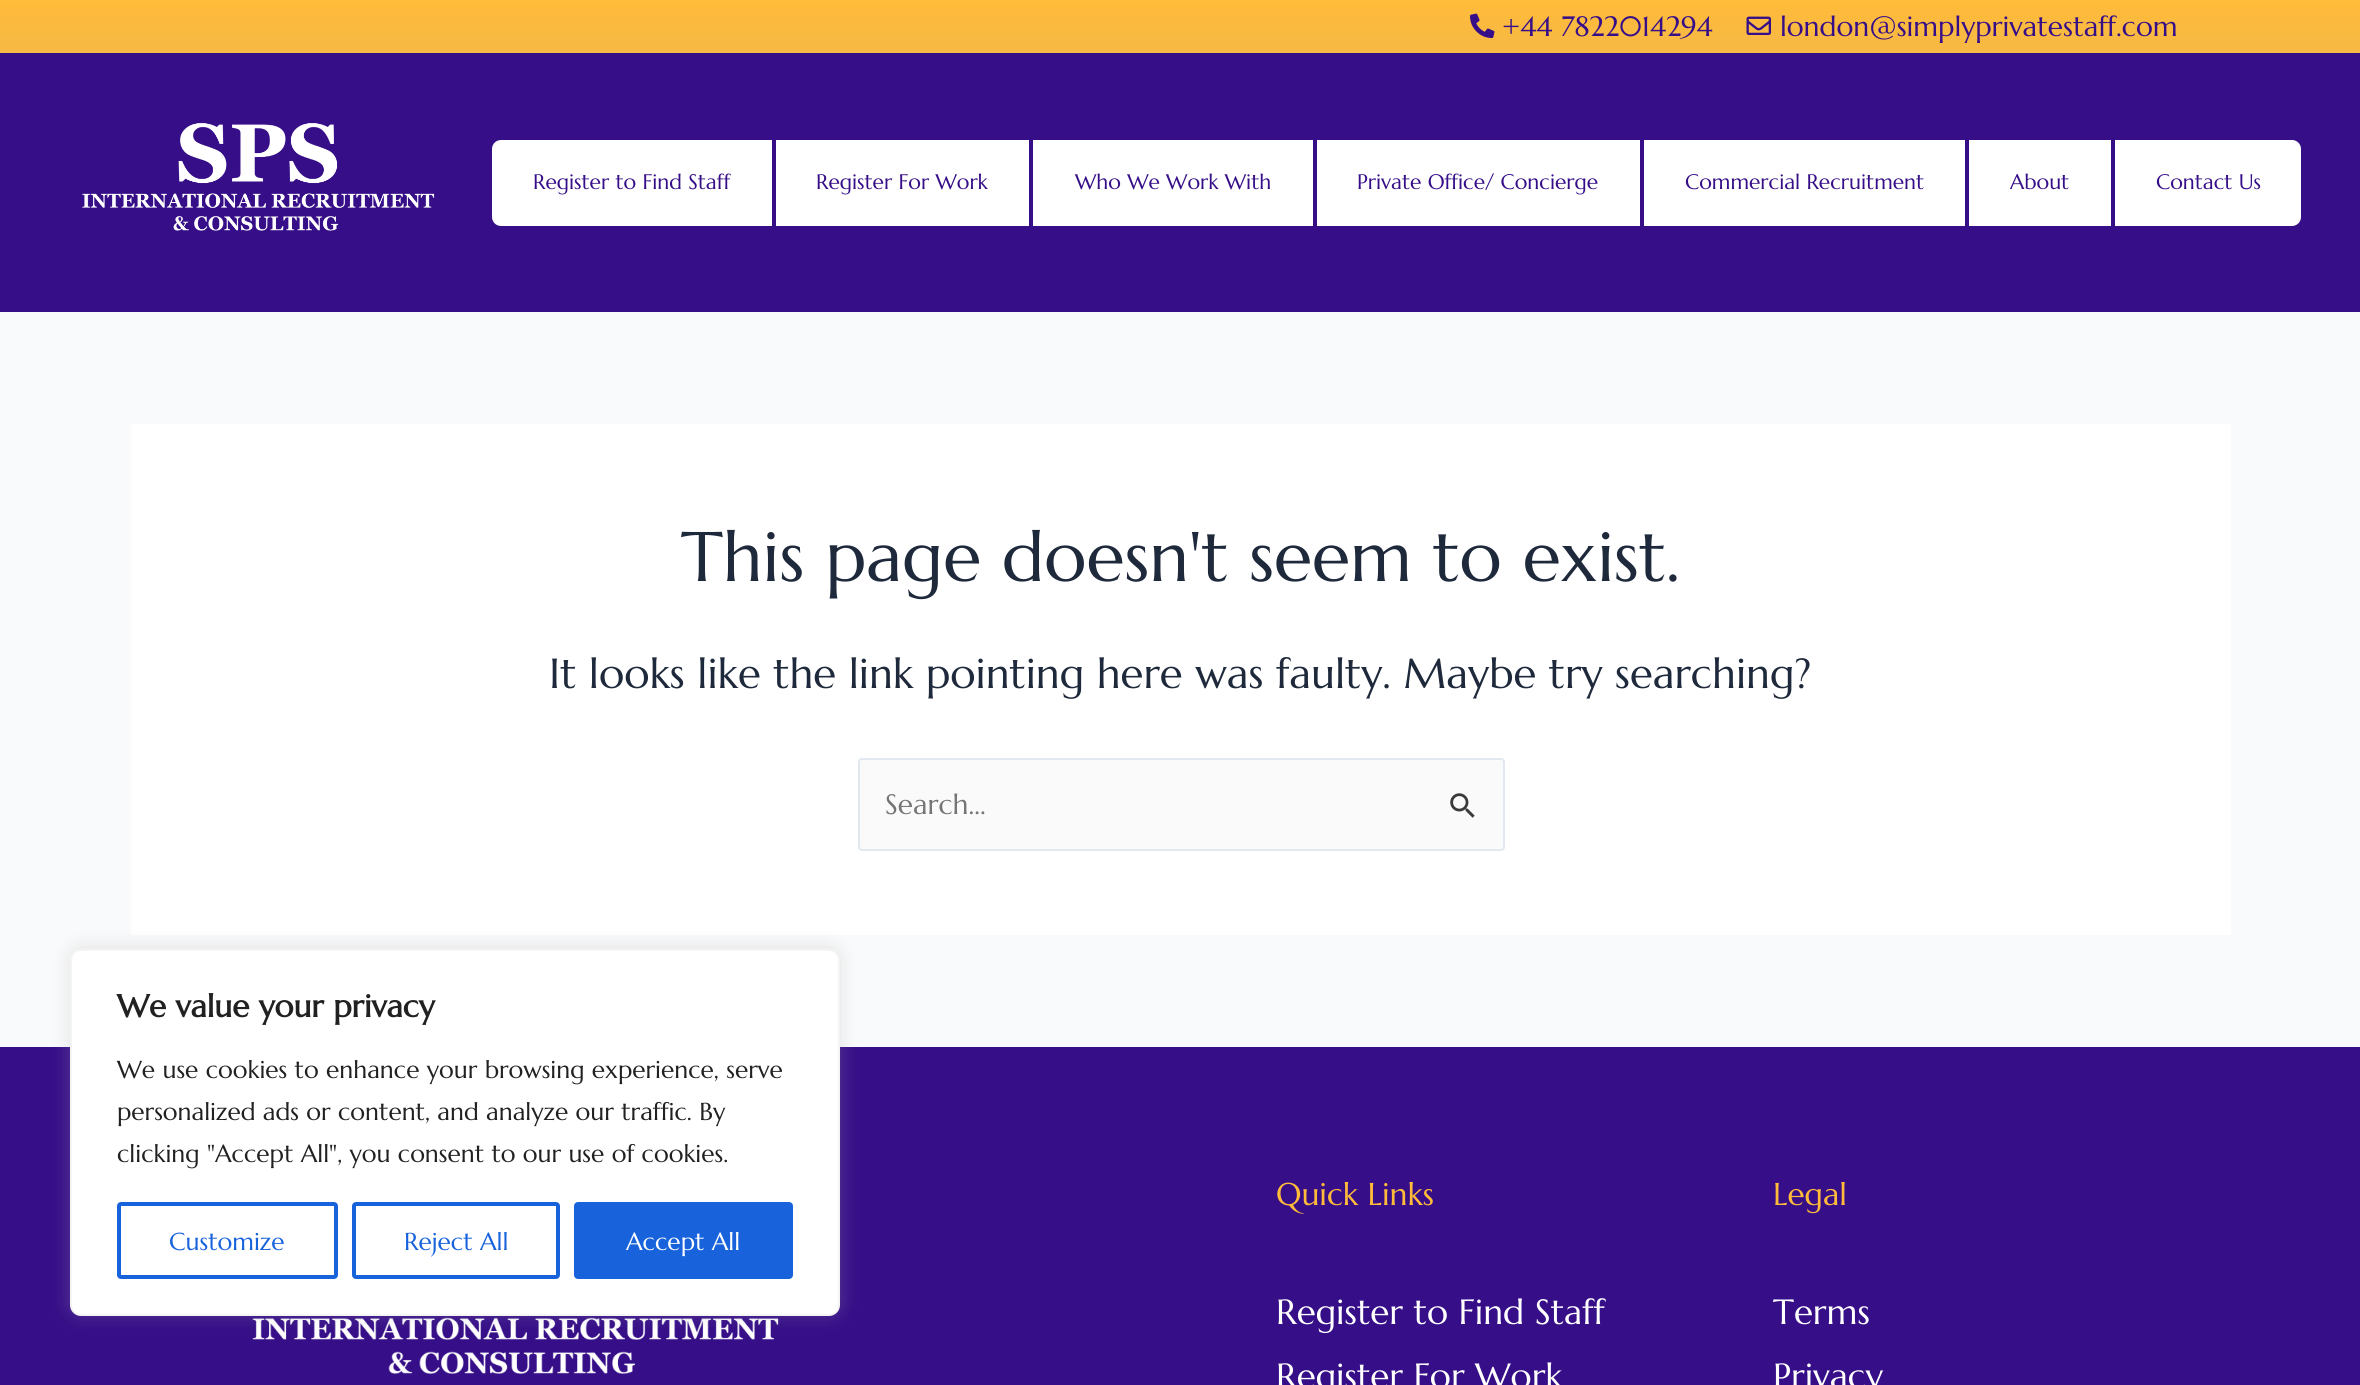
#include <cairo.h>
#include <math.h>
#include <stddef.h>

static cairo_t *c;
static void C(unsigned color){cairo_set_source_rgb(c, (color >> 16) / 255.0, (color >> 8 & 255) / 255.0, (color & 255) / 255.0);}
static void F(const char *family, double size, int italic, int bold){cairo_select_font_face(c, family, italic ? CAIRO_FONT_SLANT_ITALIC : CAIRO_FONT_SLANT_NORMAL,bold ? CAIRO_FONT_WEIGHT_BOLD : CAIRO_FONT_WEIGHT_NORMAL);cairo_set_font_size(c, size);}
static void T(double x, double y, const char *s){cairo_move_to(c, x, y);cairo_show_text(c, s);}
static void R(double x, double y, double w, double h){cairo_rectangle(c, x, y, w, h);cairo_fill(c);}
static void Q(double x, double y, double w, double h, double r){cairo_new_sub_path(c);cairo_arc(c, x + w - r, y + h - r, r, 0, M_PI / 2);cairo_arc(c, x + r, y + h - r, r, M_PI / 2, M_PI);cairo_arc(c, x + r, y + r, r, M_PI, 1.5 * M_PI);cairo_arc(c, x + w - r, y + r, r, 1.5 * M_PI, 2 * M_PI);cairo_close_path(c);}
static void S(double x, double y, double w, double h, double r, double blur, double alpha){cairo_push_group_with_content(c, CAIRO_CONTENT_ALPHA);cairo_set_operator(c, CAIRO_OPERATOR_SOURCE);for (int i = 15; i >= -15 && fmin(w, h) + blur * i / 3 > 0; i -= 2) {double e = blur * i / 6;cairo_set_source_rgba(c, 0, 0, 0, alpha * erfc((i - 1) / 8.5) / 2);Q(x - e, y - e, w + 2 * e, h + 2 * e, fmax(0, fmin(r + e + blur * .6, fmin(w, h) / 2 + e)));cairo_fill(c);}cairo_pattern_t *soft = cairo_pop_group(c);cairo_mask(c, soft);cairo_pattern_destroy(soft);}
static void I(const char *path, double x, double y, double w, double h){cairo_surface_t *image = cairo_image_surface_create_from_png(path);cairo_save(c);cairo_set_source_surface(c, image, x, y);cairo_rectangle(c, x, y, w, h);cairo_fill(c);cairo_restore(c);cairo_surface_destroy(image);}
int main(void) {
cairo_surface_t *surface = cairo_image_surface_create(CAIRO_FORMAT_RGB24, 2360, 1385);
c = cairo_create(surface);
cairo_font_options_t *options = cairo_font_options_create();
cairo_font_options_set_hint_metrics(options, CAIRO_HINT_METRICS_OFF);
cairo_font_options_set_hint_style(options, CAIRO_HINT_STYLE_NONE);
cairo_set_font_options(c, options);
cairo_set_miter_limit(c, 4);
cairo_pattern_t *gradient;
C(0xf9fafb);
cairo_paint(c);
C(0xffffff);
R(131,424,2100,511);
C(0x360e88);
R(0,1047,2360,338);
I("5.png",252,1317,527,57);
C(0xacabab);
S(70,947,770,367,11,9,.3);
C(0xffffff);
Q(71,950,768,365,10);
cairo_fill_preserve(c);
C(0xf4f4f4);
cairo_stroke(c);
F("Marcellus",31.5,0,1);
C(0x212121);
T(117,1017,"We value your privacy");
F("Marcellus",24.5,0,0);
T(117,1078,"We use cookies to enhance your browsing experience, serve");
T(117,1120,"personalized ads or content, and analyze our traffic. By");
T(117,1162,"clicking \"Accept All\", you consent to our use of cookies.");
Q(119,1204,217,73,2);
C(0x1863dc);
cairo_set_line_width(c,4);
cairo_stroke(c);
T(169,1250,"Customize");
Q(354,1204,204,73,2);
cairo_stroke(c);
T(404,1250,"Reject All");
Q(576,1204,215,73,2);
cairo_fill_preserve(c);
cairo_stroke(c);
C(0xffffff);
T(626,1250,"Accept All");
gradient = cairo_pattern_create_linear(1180,0,1180,53);
cairo_pattern_add_color_stop_rgba(gradient,0,1,0.733,0.224,1);
cairo_pattern_add_color_stop_rgba(gradient,1,0.965,0.725,0.271,1);
cairo_set_source(c,gradient);
cairo_pattern_destroy(gradient);
R(0,0,2360,53);
I("1.png",1470,13,25,26);
F("Marcellus",28,0,0);
C(0x360e88);
T(1502,36,"+44 7822014294");
I("2.png",1746,16,25,19);
T(1780,36,"london@simplyprivatestaff.com");
R(0,53,2360,259);
I("3.png",82,123,353,108);
C(0xffffff);
Q(492,140,1809,86,9);
cairo_fill(c);
F("Marcellus",21,0,0);
C(0x360e88);
T(533,189,"Register to Find Staff");
R(772,140,4,86);
T(816,189,"Register For Work");
R(1029,140,4,86);
T(1075,189,"Who We Work With");
R(1313,140,4,86);
T(1357,189,"Private Office/ Concierge");
R(1640,140,4,86);
T(1685,189,"Commercial Recruitment");
R(1965,140,4,86);
T(2010,189,"About");
R(2111,140,4,86);
T(2156,189,"Contact Us");
F("Marcellus",70,0,0);
C(0x1e293b);
T(681,581,"This page doesn't seem to exist.");
F("Marcellus",42,0,0);
T(549,688,"It looks like the link pointing here was faulty. Maybe try searching?");
C(0xfafafa);
Q(859,759,645,91,3);
cairo_fill_preserve(c);
C(0xe2e8f0);
cairo_set_line_width(c,2);
cairo_stroke(c);
F("Marcellus",28,0,0);
C(0x757575);
T(885,814,"Search...");
I("4.png",1450,793,25,25);
F("Marcellus",31.5,0,0);
C(0xffbb39);
T(1276,1205,"Quick Links");
F("Marcellus",35,0,0);
C(0xffffff);
T(1276,1324,"Register to Find Staff");
T(1276,1388,"Register For Work");
F("Marcellus",31.5,0,0);
C(0xffbb39);
T(1773,1205,"Legal");
F("Marcellus",35,0,0);
C(0xffffff);
T(1773,1324,"Terms");
T(1773,1388,"Privacy");
cairo_surface_write_to_png(surface, "o.png");
cairo_font_options_destroy(options);
cairo_destroy(c);
cairo_surface_destroy(surface);
return 0;
}
